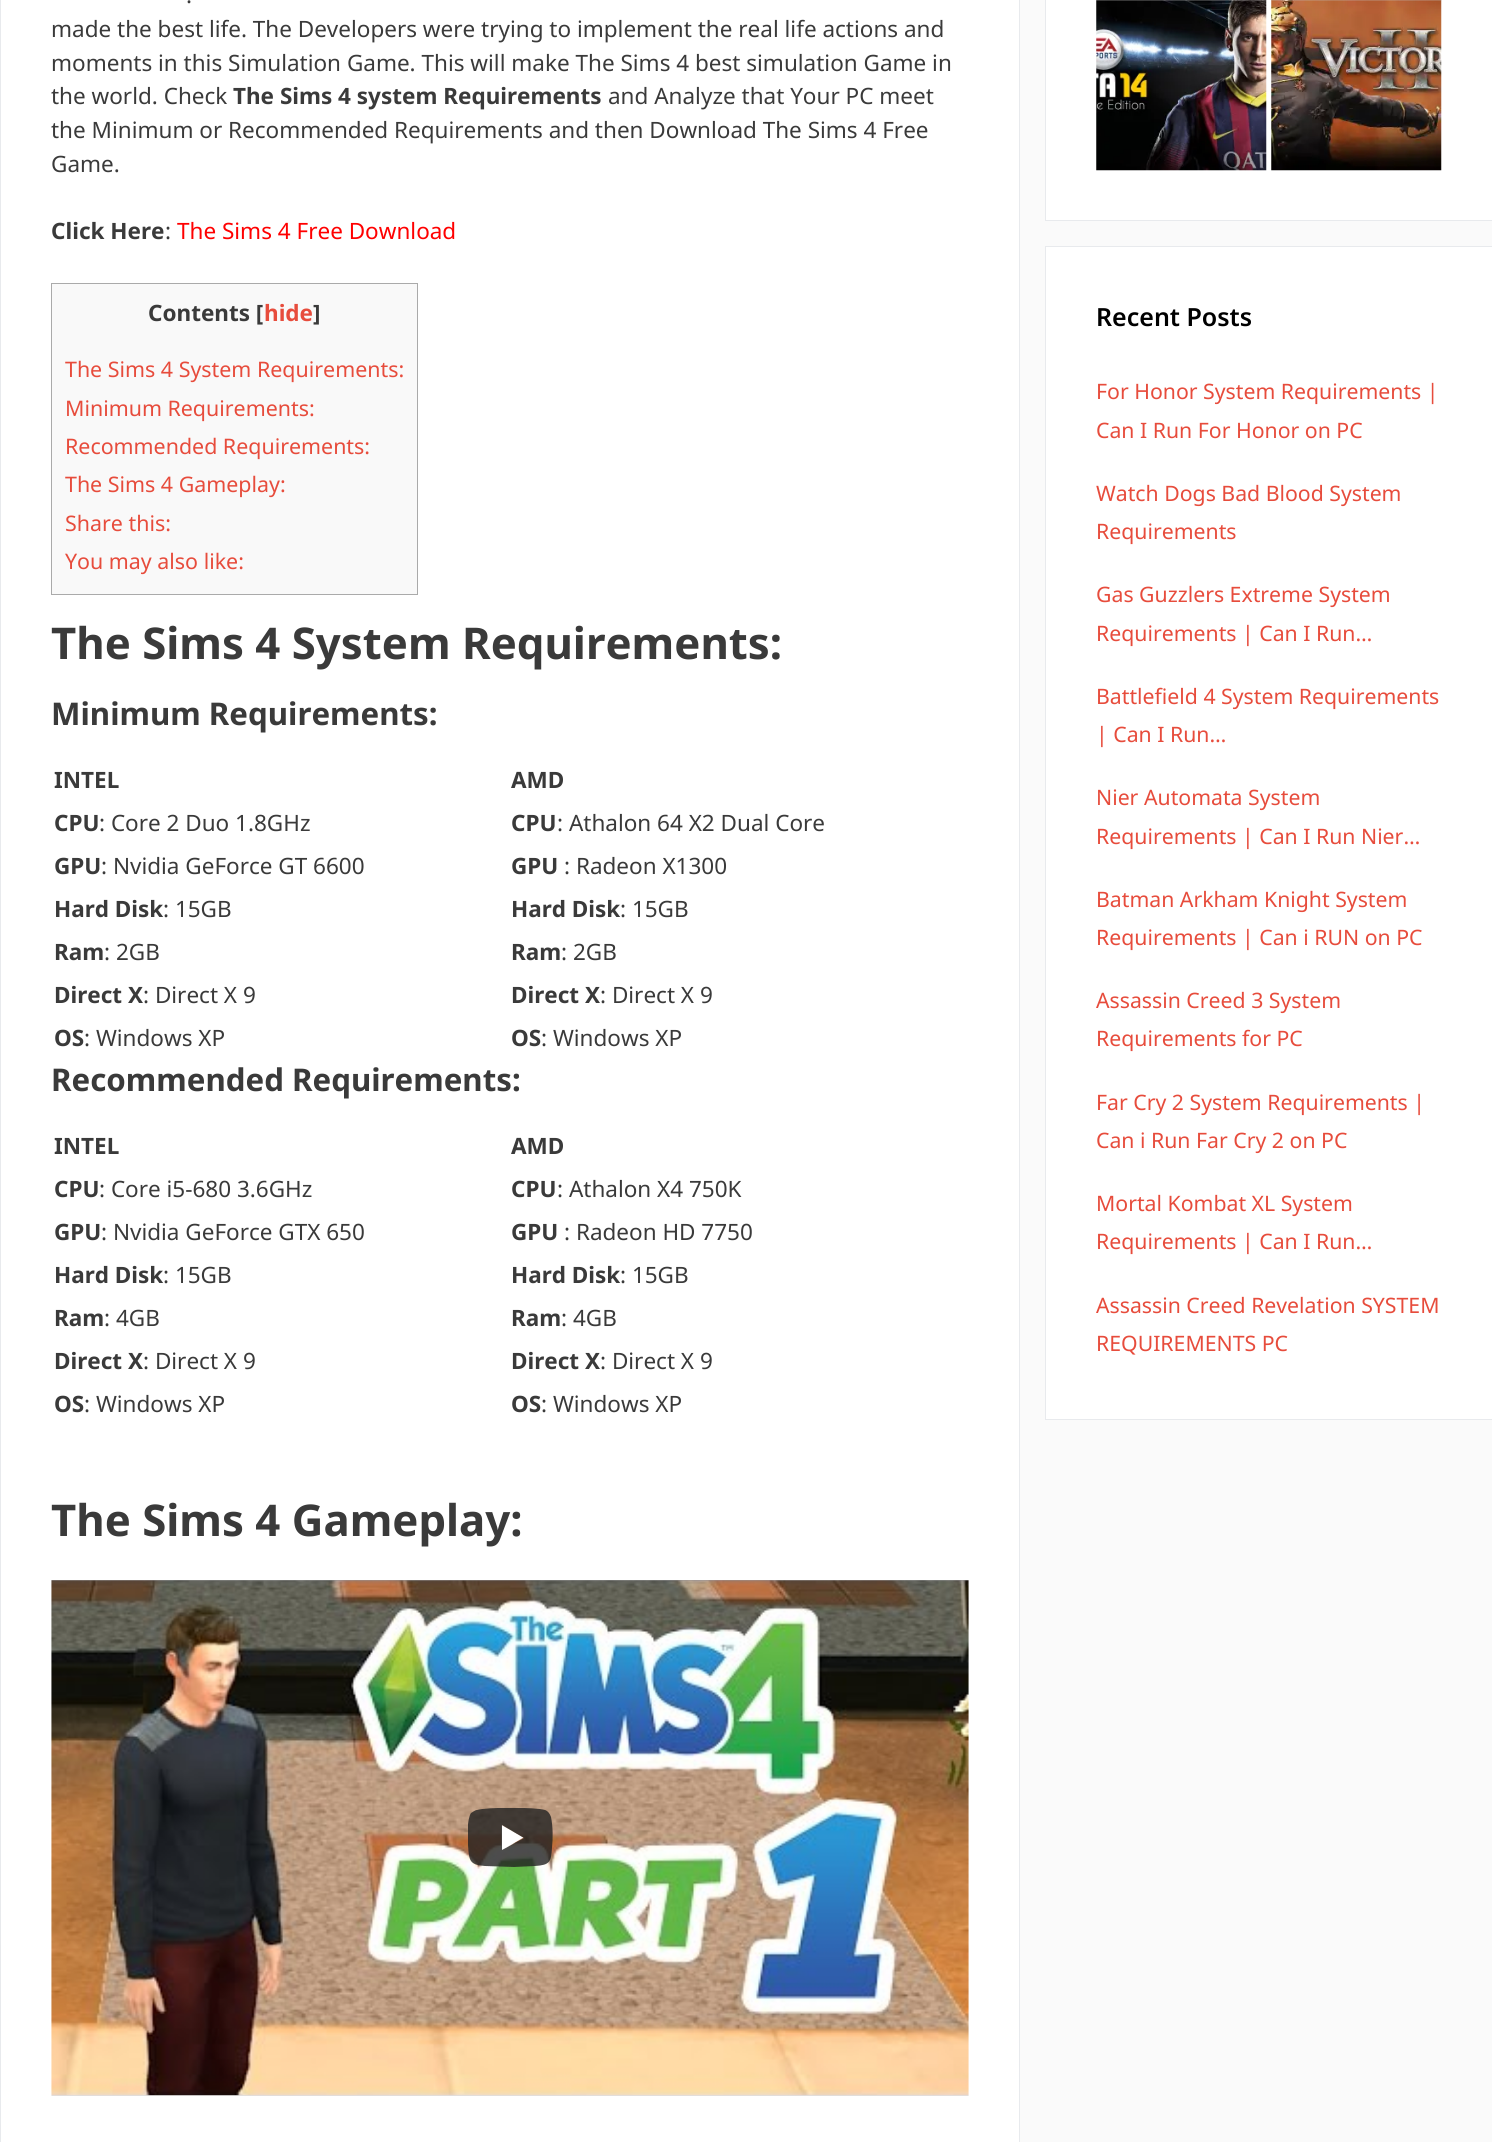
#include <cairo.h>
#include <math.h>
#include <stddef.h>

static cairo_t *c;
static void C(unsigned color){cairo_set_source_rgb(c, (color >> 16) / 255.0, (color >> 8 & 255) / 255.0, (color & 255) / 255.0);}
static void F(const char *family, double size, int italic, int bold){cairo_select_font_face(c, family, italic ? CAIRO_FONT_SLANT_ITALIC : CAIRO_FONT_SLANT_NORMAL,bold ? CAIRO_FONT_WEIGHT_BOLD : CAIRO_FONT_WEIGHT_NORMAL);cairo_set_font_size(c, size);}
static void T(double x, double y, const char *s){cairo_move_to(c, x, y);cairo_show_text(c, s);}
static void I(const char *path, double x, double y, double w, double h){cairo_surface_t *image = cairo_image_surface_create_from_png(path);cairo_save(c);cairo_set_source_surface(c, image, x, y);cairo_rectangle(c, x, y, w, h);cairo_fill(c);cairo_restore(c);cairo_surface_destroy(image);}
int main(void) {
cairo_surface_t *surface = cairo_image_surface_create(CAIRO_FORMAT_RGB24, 1492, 2142);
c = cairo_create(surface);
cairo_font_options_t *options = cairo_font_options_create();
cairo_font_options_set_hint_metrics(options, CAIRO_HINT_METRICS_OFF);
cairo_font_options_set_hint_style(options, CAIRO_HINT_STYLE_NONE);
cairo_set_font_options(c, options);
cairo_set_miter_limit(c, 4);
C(0xfafafa);
cairo_paint(c);
C(0xffffff);
cairo_rectangle(c,.5,-.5,1019,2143);
cairo_fill_preserve(c);
C(0xe8eaed);
cairo_set_line_width(c,1);
cairo_stroke(c);
F("Noto Sans",22.5,0,0);
C(0x3a3a3a);
T(186,3,".");
T(51,37,"made the best life. The Developers were trying to implement the real life actions and");
T(51,71,"moments in this Simulation Game. This will make The Sims 4 best simulation Game in");
T(51,104,"the world. Check");
F("Noto Sans",22.5,0,1);
T(233,104,"The Sims 4 system Requirements");
F("Noto Sans",22.5,0,0);
T(608,104,"and Analyze that Your PC meet");
T(51,138,"the Minimum or Recommended Requirements and then Download The Sims 4 Free");
T(51,172,"Game.");
F("Noto Sans",22.5,0,1);
T(51,239,"Click Here");
F("Noto Sans",22.5,0,0);
T(165,239,":");
C(0xff0000);
T(177,239,"The Sims 4 Free Download");
C(0xf9f9f9);
cairo_rectangle(c,51.5,283.5,366,311);
cairo_fill_preserve(c);
C(0xaaaaaa);
cairo_stroke(c);
F("Noto Sans",22.5,0,1);
C(0x3a3a3a);
T(148,321,"Contents [");
C(0xe74c3c);
T(264,321,"hide");
C(0x3a3a3a);
T(313,321,"]");
F("Noto Sans",21.4,0,0);
C(0xe74c3c);
T(65,377,"The Sims 4 System Requirements:");
T(65,416,"Minimum Requirements:");
T(65,454,"Recommended Requirements:");
T(65,492,"The Sims 4 Gameplay:");
T(65,531,"Share this:");
T(65,569,"You may also like:");
F("Noto Sans",43.75,0,1);
C(0x3a3a3a);
T(51,659,"The Sims 4 System Requirements:");
F("Noto Sans",31.25,0,1);
T(51,725,"Minimum Requirements:");
F("Noto Sans",22.5,0,1);
T(54,788,"INTEL");
T(511,788,"AMD");
T(54,831,"CPU");
F("Noto Sans",22.5,0,0);
T(99,831,": Core 2 Duo 1.8GHz");
F("Noto Sans",22.5,0,1);
T(511,831,"CPU");
F("Noto Sans",22.5,0,0);
T(557,831,": Athalon 64 X2 Dual Core");
F("Noto Sans",22.5,0,1);
T(54,874,"GPU");
F("Noto Sans",22.5,0,0);
T(101,874,": Nvidia GeForce GT 6600");
F("Noto Sans",22.5,0,1);
T(511,874,"GPU");
F("Noto Sans",22.5,0,0);
T(564,874,": Radeon X1300");
F("Noto Sans",22.5,0,1);
T(54,917,"Hard Disk");
F("Noto Sans",22.5,0,0);
T(163,917,": 15GB");
F("Noto Sans",22.5,0,1);
T(511,917,"Hard Disk");
F("Noto Sans",22.5,0,0);
T(620,917,": 15GB");
F("Noto Sans",22.5,0,1);
T(54,960,"Ram");
F("Noto Sans",22.5,0,0);
T(104,960,": 2GB");
F("Noto Sans",22.5,0,1);
T(511,960,"Ram");
F("Noto Sans",22.5,0,0);
T(561,960,": 2GB");
F("Noto Sans",22.5,0,1);
T(54,1003,"Direct X");
F("Noto Sans",22.5,0,0);
T(143,1003,": Direct X 9");
F("Noto Sans",22.5,0,1);
T(511,1003,"Direct X");
F("Noto Sans",22.5,0,0);
T(600,1003,": Direct X 9");
F("Noto Sans",22.5,0,1);
T(54,1046,"OS");
F("Noto Sans",22.5,0,0);
T(84,1046,": Windows XP");
F("Noto Sans",22.5,0,1);
T(511,1046,"OS");
F("Noto Sans",22.5,0,0);
T(541,1046,": Windows XP");
F("Noto Sans",31.25,0,1);
T(51,1091,"Recommended Requirements:");
F("Noto Sans",22.5,0,1);
T(54,1154,"INTEL");
T(511,1154,"AMD");
T(54,1197,"CPU");
F("Noto Sans",22.5,0,0);
T(99,1197,": Core i5-680 3.6GHz");
F("Noto Sans",22.5,0,1);
T(511,1197,"CPU");
F("Noto Sans",22.5,0,0);
T(557,1197,": Athalon X4 750K");
F("Noto Sans",22.5,0,1);
T(54,1240,"GPU");
F("Noto Sans",22.5,0,0);
T(101,1240,": Nvidia GeForce GTX 650");
F("Noto Sans",22.5,0,1);
T(511,1240,"GPU");
F("Noto Sans",22.5,0,0);
T(564,1240,": Radeon HD 7750");
F("Noto Sans",22.5,0,1);
T(54,1283,"Hard Disk");
F("Noto Sans",22.5,0,0);
T(163,1283,": 15GB");
F("Noto Sans",22.5,0,1);
T(511,1283,"Hard Disk");
F("Noto Sans",22.5,0,0);
T(620,1283,": 15GB");
F("Noto Sans",22.5,0,1);
T(54,1326,"Ram");
F("Noto Sans",22.5,0,0);
T(104,1326,": 4GB");
F("Noto Sans",22.5,0,1);
T(511,1326,"Ram");
F("Noto Sans",22.5,0,0);
T(561,1326,": 4GB");
F("Noto Sans",22.5,0,1);
T(54,1369,"Direct X");
F("Noto Sans",22.5,0,0);
T(143,1369,": Direct X 9");
F("Noto Sans",22.5,0,1);
T(511,1369,"Direct X");
F("Noto Sans",22.5,0,0);
T(600,1369,": Direct X 9");
F("Noto Sans",22.5,0,1);
T(54,1412,"OS");
F("Noto Sans",22.5,0,0);
T(84,1412,": Windows XP");
F("Noto Sans",22.5,0,1);
T(511,1412,"OS");
F("Noto Sans",22.5,0,0);
T(541,1412,": Windows XP");
F("Noto Sans",43.75,0,1);
T(51,1536,"The Sims 4 Gameplay:");
I("1.png",51,1580,918,516);
C(0xffffff);
cairo_new_path(c);
cairo_move_to(c,501.5,1850.5);
cairo_line_to(c,501.5,1825);
cairo_line_to(c,523.5,1837.5);
cairo_close_path(c);
cairo_fill(c);
cairo_save(c);
cairo_rectangle(c,468,1808,85,60);
cairo_clip(c);
cairo_set_source_rgba(c,0.129,0.129,0.129,0.8);
cairo_new_path(c);
cairo_move_to(c,551,1817);
cairo_curve_to(c,550,1814,548,1811,545,1810);
cairo_curve_to(c,536,1807,486,1807,477,1810);
cairo_curve_to(c,475,1810,473,1812,471,1813);
cairo_curve_to(c,467,1819,467,1838,468,1845);
cairo_curve_to(c,469,1860,469,1865,485,1866);
cairo_line_to(c,514,1867);
cairo_line_to(c,535,1866);
cairo_curve_to(c,550,1865,551,1862,552,1848);
cairo_curve_to(c,553,1838,553,1827,551,1817);
cairo_close_path(c);
cairo_move_to(c,502,1850);
cairo_line_to(c,502,1825);
cairo_line_to(c,524,1838);
cairo_close_path(c);
cairo_fill(c);
cairo_restore(c);
cairo_rectangle(c,1045.5,-.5,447,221);
cairo_fill_preserve(c);
C(0xe8eaed);
cairo_stroke(c);
I("2.png",1096,0,171,1);
I("3.png",1096,0,171,171);
I("4.png",1271,0,171,1);
I("5.png",1271,0,171,171);
C(0xffffff);
cairo_rectangle(c,1045.5,246.5,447,1173);
cairo_fill_preserve(c);
C(0xe8eaed);
cairo_stroke(c);
F("Noto Sans SemiBold",25,0,0);
C(0x000000);
T(1096,326,"Recent Posts");
F("Noto Sans",21.25,0,0);
C(0xe74c3c);
T(1096,399,"For Honor System Requirements |");
T(1096,438,"Can I Run For Honor on PC");
T(1096,501,"Watch Dogs Bad Blood System");
T(1096,539,"Requirements");
T(1096,602,"Gas Guzzlers Extreme System");
T(1096,641,"Requirements | Can I Run…");
T(1096,704,"Battlefield 4 System Requirements");
T(1096,742,"| Can I Run…");
T(1096,805,"Nier Automata System");
T(1096,844,"Requirements | Can I Run Nier…");
T(1096,907,"Batman Arkham Knight System");
T(1096,945,"Requirements | Can i RUN on PC");
T(1096,1008,"Assassin Creed 3 System");
T(1096,1046,"Requirements for PC");
T(1096,1110,"Far Cry 2 System Requirements |");
T(1096,1148,"Can i Run Far Cry 2 on PC");
T(1096,1211,"Mortal Kombat XL System");
T(1096,1249,"Requirements | Can I Run…");
T(1096,1313,"Assassin Creed Revelation SYSTEM");
T(1096,1351,"REQUIREMENTS PC");
cairo_surface_write_to_png(surface, "o.png");
cairo_font_options_destroy(options);
cairo_destroy(c);
cairo_surface_destroy(surface);
return 0;
}
